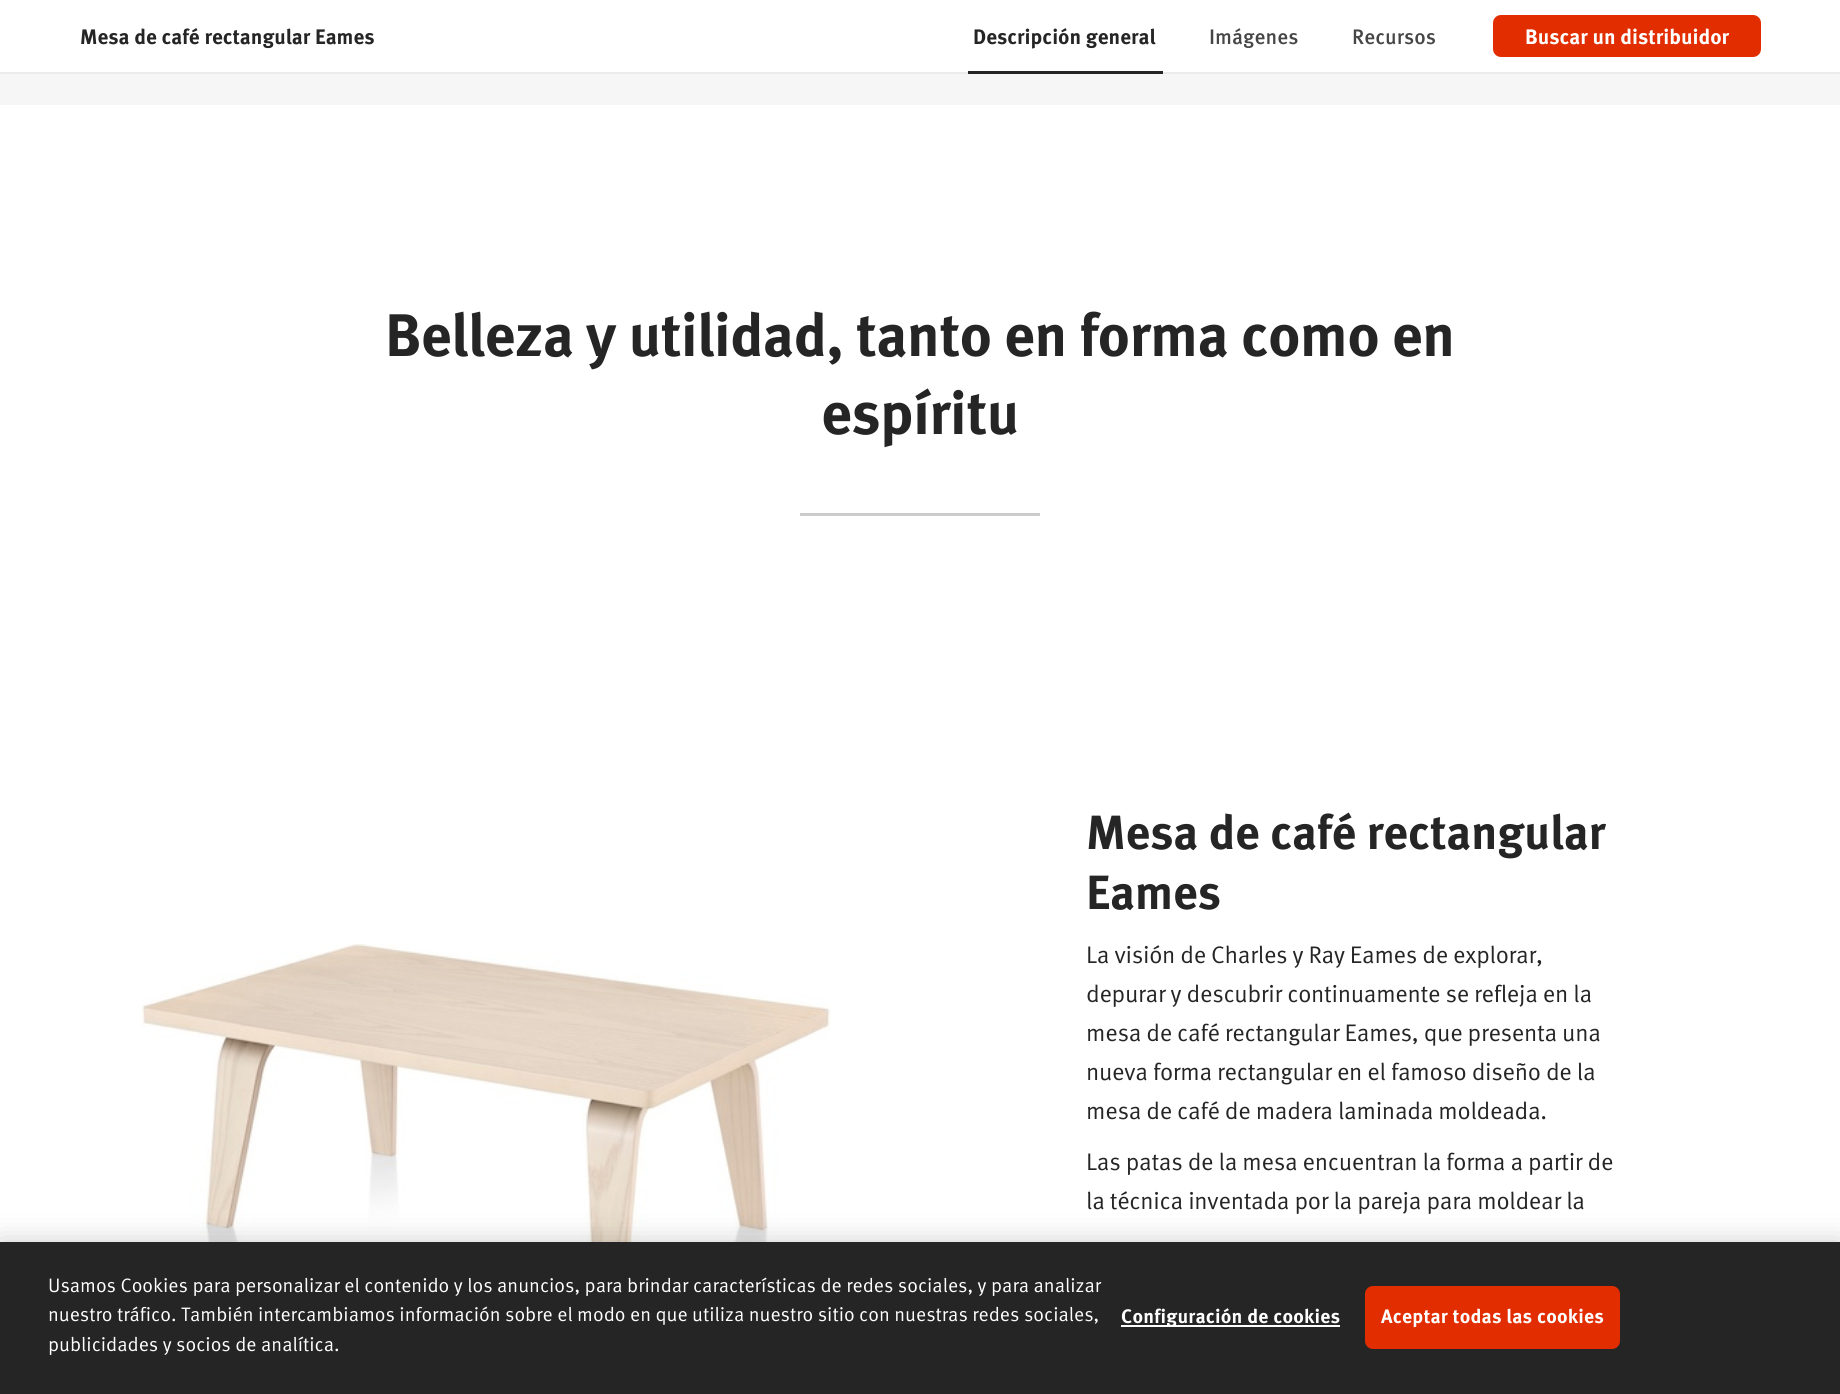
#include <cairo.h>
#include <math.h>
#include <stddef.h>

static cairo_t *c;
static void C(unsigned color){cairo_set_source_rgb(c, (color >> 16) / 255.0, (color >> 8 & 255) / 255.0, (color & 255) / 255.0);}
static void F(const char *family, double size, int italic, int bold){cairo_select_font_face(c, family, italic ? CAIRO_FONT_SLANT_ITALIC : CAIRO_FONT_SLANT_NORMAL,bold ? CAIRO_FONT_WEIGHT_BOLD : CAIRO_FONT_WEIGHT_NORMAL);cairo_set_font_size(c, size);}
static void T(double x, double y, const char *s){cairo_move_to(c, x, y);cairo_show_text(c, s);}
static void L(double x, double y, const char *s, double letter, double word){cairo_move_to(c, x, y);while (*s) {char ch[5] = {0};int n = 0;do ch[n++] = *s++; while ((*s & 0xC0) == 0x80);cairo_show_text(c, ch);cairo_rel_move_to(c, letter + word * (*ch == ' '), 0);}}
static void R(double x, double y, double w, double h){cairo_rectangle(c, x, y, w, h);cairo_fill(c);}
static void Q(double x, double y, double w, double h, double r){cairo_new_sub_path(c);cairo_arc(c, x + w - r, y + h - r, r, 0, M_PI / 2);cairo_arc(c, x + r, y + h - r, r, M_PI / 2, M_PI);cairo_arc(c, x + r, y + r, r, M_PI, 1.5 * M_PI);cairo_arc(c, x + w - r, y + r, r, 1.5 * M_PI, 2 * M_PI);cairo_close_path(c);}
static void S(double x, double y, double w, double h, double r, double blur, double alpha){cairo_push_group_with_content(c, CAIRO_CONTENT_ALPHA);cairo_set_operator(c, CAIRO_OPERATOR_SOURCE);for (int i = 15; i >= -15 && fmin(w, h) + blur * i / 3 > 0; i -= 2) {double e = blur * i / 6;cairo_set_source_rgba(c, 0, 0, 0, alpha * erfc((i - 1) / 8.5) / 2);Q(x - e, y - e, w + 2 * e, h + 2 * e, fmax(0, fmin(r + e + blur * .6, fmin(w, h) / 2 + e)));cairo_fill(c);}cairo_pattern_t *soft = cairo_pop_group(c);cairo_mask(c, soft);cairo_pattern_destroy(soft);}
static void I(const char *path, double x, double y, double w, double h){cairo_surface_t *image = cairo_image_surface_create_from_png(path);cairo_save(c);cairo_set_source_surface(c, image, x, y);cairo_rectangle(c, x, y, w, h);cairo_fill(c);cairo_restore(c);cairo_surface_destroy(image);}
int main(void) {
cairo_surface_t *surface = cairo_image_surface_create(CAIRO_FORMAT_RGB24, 1840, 1394);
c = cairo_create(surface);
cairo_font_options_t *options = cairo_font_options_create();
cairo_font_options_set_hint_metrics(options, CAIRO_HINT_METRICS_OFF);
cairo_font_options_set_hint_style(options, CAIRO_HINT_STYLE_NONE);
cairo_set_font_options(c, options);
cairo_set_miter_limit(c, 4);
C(0xffffff);
cairo_paint(c);
C(0xebebeb);
R(0,72,1840,2);
F("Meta",21,0,1);
C(0x252525);
T(80,44,"Mesa de café rectangular Eames");
T(973,44,"Descripción general");
R(968,71,195,3);
F("Meta Medium",21,0,0);
C(0x464646);
T(1209,44,"Imágenes");
T(1352,44,"Recursos");
C(0xe22d00);
Q(1496,18,262,36,5);
cairo_fill_preserve(c);
cairo_set_line_width(c,6);
cairo_stroke(c);
F("Meta",21,0,1);
C(0xffffff);
T(1525,44,"Buscar un distribuidor");
C(0xf6f6f6);
R(0,74,1840,31);
F("Meta",60,0,1);
C(0x252525);
L(385,356,"Belleza y utilidad, tanto en forma como en",-.75,0);
L(821,434,"espíritu",-.75,0);
C(0xcccccc);
R(800,513,240,3);
I("1.png",140,943,691,299);
F("Meta",48,0,1);
C(0x252525);
L(1086,849,"Mesa de café rectangular",-.3,0);
L(1086,909,"Eames",-.3,0);
F("Meta",24,0,0);
L(1086,963,"La visión de Charles y Ray Eames de explorar,",-.3,0);
L(1086,1002,"depurar y descubrir continuamente se refleja en la",-.3,0);
L(1086,1041,"mesa de café rectangular Eames, que presenta una",-.3,0);
L(1086,1080,"nueva forma rectangular en el famoso diseño de la",-.3,0);
L(1086,1119,"mesa de café de madera laminada moldeada.",-.3,0);
L(1086,1170,"Las patas de la mesa encuentran la forma a partir de",-.3,0);
L(1086,1209,"la técnica inventada por la pareja para moldear la",-.3,0);
C(0x000000);
S(0,1242,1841,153,0,13.5,.2);
C(0x252525);
R(0,1242,1840,152);
F("Meta",19.5,0,0);
C(0xffffff);
T(48,1292,"Usamos Cookies para personalizar el contenido y los anuncios, para brindar características de redes sociales, y para analizar");
T(48,1321,"nuestro tráfico. También intercambiamos información sobre el modo en que utiliza nuestro sitio con nuestras redes sociales,");
T(48,1351,"publicidades y socios de analítica.");
R(1121,1325,219,2);
F("Meta",19.5,0,1);
L(1121,1323,"Configuración de cookies",.2,0);
C(0xe22d00);
Q(1366,1287,253,61,7);
cairo_fill_preserve(c);
cairo_set_line_width(c,2);
cairo_stroke(c);
C(0xffffff);
L(1381,1323,"Aceptar todas las cookies",.2,0);
cairo_surface_write_to_png(surface, "o.png");
cairo_font_options_destroy(options);
cairo_destroy(c);
cairo_surface_destroy(surface);
return 0;
}
